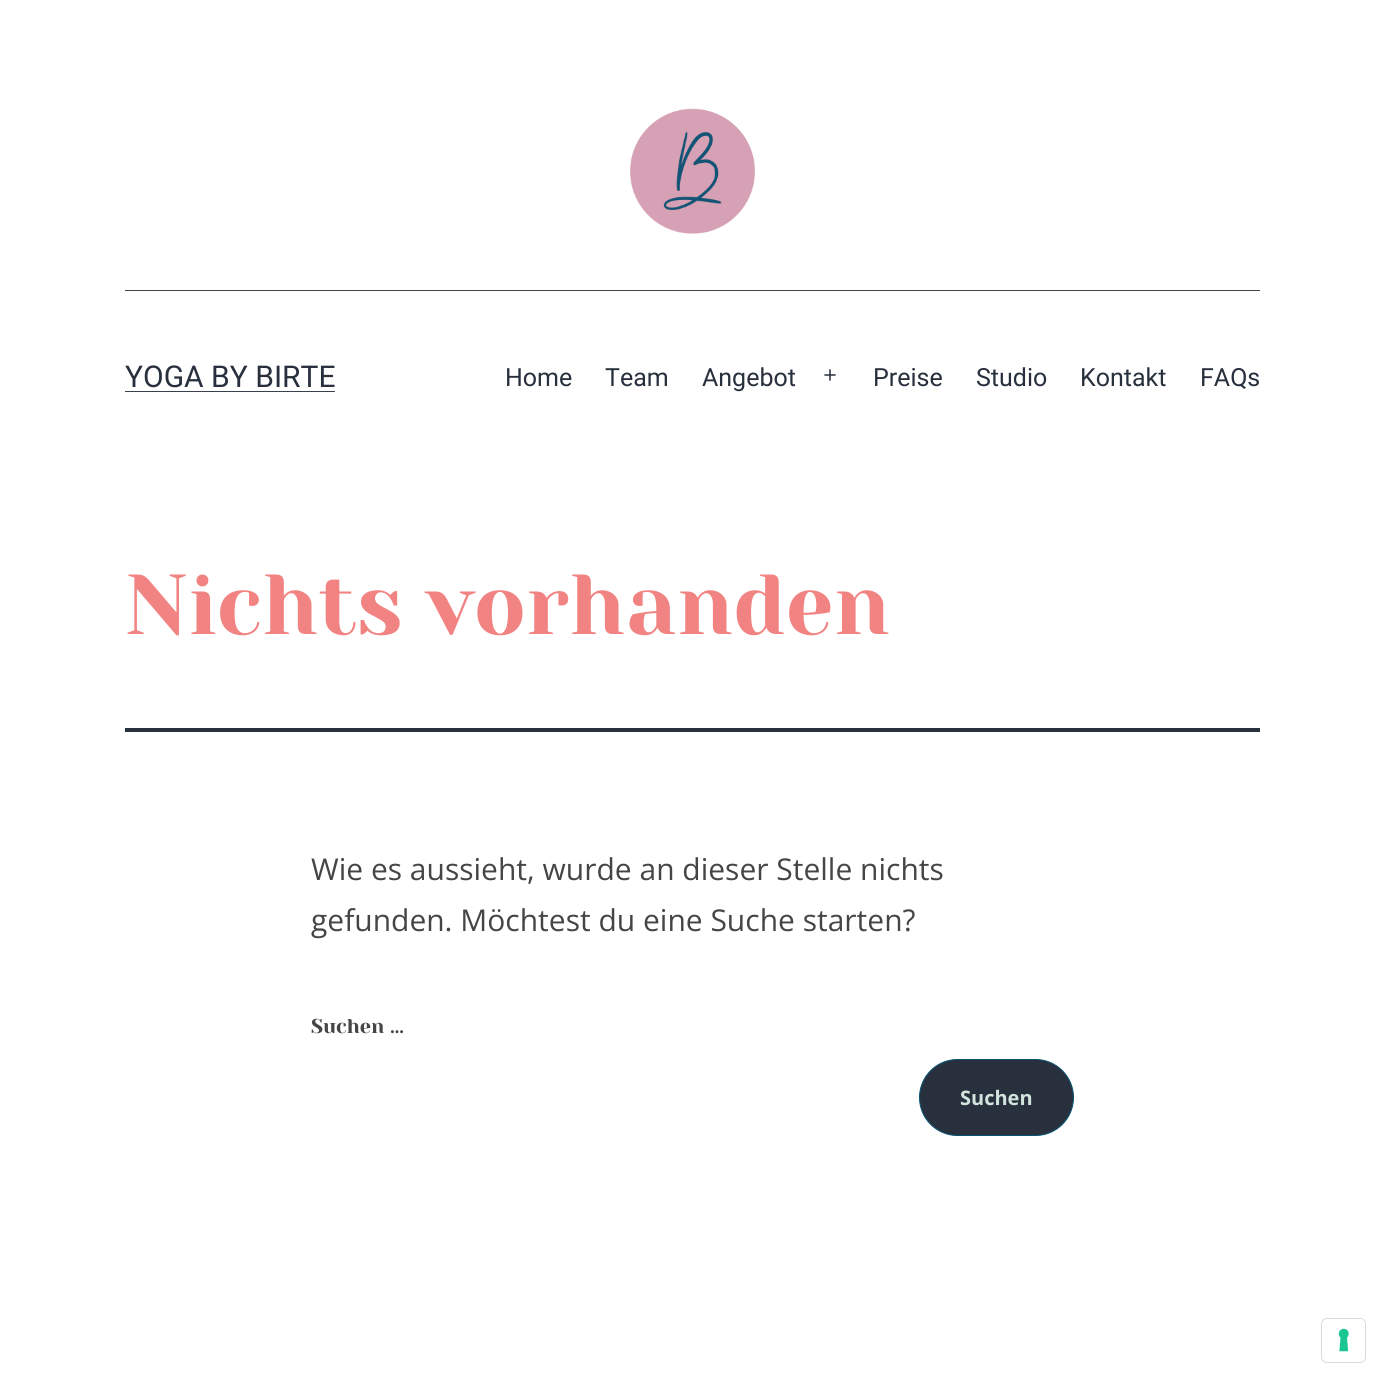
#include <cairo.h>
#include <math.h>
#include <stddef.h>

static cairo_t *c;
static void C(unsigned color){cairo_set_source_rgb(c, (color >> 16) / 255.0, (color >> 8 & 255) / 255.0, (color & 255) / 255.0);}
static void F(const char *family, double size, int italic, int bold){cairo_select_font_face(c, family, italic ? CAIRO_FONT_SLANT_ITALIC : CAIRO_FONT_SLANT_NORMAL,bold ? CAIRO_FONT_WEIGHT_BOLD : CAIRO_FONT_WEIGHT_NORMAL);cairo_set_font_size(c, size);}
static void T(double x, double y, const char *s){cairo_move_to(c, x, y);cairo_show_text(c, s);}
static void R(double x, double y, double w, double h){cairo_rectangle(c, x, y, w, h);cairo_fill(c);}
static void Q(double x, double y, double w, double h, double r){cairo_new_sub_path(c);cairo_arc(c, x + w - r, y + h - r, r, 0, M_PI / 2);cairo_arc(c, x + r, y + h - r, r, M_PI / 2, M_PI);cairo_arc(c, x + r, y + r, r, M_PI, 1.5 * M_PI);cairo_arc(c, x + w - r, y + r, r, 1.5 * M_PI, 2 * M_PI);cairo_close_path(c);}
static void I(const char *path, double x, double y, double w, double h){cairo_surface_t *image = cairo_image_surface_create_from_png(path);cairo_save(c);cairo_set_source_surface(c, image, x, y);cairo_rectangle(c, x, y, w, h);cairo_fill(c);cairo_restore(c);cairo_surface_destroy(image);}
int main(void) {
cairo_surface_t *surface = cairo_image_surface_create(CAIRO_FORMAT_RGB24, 1384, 1381);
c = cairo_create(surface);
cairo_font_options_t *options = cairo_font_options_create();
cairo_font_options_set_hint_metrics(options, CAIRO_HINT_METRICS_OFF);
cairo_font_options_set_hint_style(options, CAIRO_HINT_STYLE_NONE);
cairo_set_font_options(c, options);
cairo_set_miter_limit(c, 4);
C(0xffffff);
cairo_paint(c);
C(0x454545);
R(125,290,1135,1);
I("1.png",630,108,125,126);
F("Roboto",30,0,0);
C(0x28303d);
T(125,387,"YOGA BY BIRTE");
C(0x39414d);
R(125,391,210,1);
F("Roboto",25,0,0);
C(0x28303d);
T(505,386,"Home");
T(605,386,"Team");
T(702,386,"Angebot");
I("2.png",824,369,12,12);
T(873,386,"Preise");
T(976,386,"Studio");
T(1080,386,"Kontakt");
T(1200,386,"FAQs");
R(125,728,1135,4);
F("Yeseva One",85,0,0);
C(0xf18482);
T(125,634,"Nichts vorhanden");
F("Open Sans",30,0,0);
C(0x454545);
T(311,880,"Wie es aussieht, wurde an dieser Stelle nichts");
T(311,931,"gefunden. Möchtest du eine Suche starten?");
F("Yeseva One",20,0,0);
T(311,1033,"Suchen …");
C(0x28303d);
Q(919.5,1059.5,154,76,38);
cairo_fill_preserve(c);
C(0x075374);
cairo_set_line_width(c,1);
cairo_stroke(c);
F("Open Sans",20,0,1);
C(0xd1e4dd);
T(960,1105,"Suchen");
Q(1321.5,1318.5,44,44,5.5);
C(0xd9d9d9);
cairo_stroke(c);
C(0xffffff);
Q(1323,1319,42,42,5);
cairo_fill(c);
I("3.png",1338,1328,11,24);
cairo_surface_write_to_png(surface, "o.png");
cairo_font_options_destroy(options);
cairo_destroy(c);
cairo_surface_destroy(surface);
return 0;
}
